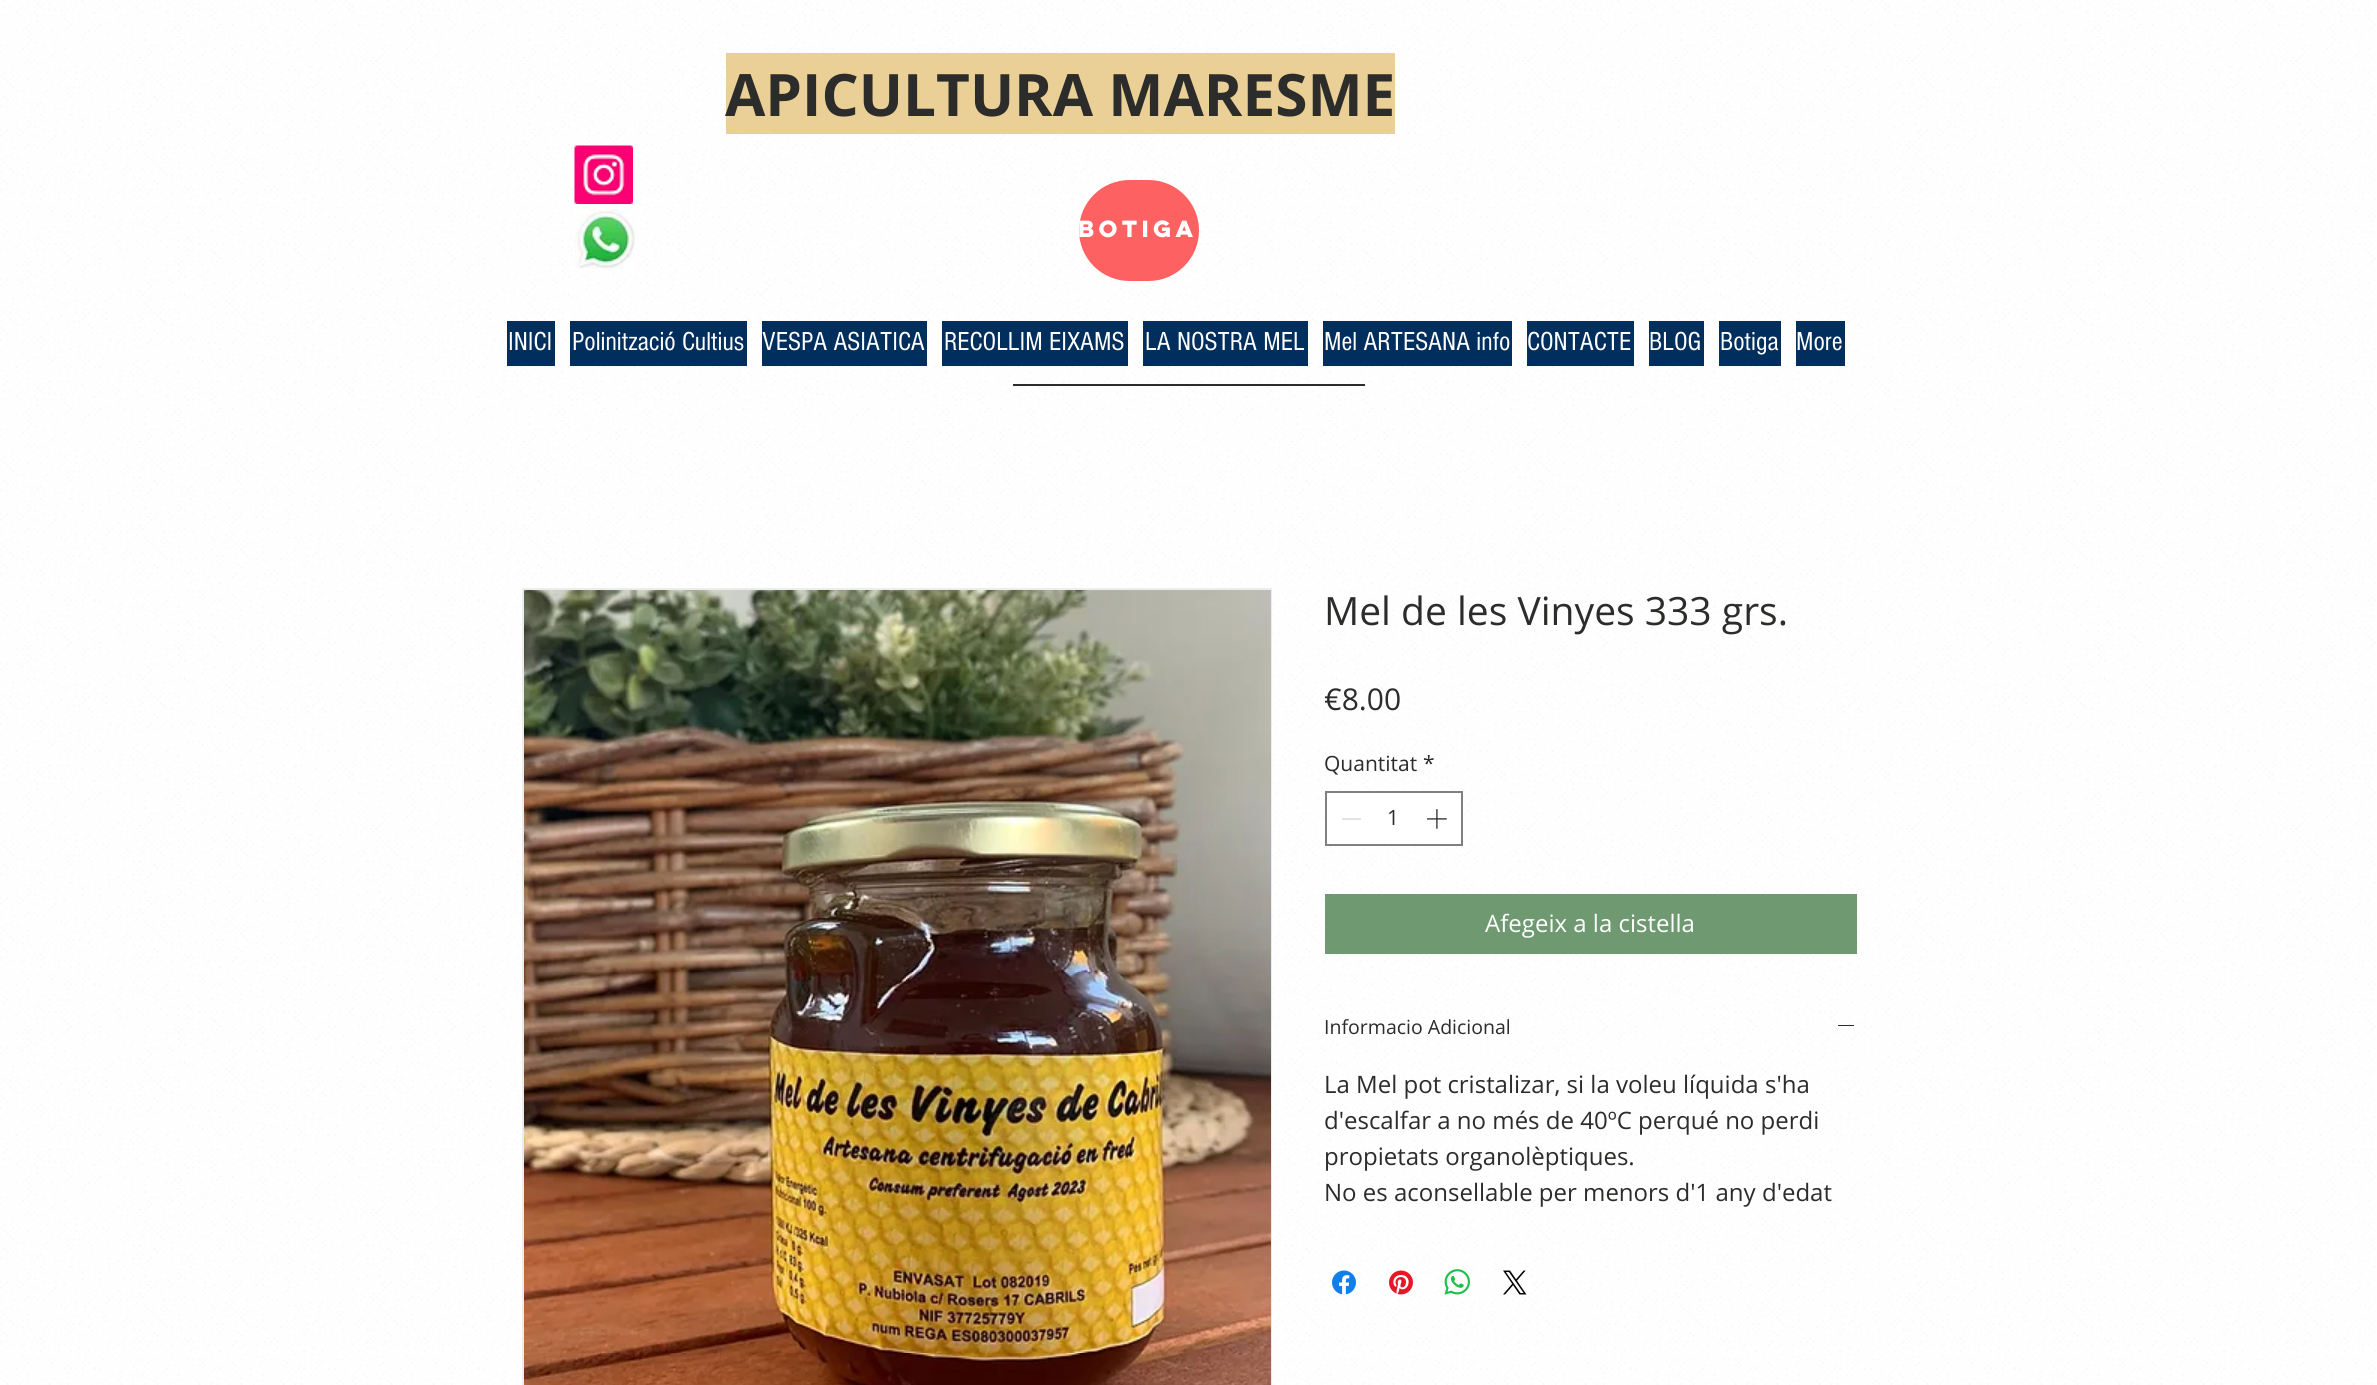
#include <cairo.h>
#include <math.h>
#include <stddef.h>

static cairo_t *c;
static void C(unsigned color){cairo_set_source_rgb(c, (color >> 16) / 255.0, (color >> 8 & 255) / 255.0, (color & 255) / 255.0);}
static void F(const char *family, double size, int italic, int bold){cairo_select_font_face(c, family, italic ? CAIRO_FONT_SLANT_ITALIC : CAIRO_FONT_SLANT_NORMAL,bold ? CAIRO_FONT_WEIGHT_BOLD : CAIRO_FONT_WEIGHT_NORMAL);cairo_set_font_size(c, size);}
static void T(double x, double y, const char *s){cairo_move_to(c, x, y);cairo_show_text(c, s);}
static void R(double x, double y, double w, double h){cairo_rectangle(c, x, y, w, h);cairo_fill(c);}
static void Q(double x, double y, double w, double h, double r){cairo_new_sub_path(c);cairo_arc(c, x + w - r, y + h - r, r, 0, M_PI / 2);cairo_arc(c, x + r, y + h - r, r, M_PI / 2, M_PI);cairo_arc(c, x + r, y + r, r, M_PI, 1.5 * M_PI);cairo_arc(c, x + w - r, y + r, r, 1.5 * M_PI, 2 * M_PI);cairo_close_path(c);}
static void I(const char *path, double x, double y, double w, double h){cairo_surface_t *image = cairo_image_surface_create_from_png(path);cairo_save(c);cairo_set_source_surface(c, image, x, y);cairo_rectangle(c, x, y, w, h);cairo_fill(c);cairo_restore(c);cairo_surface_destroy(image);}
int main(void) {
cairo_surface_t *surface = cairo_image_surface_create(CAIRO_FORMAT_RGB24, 2377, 1385);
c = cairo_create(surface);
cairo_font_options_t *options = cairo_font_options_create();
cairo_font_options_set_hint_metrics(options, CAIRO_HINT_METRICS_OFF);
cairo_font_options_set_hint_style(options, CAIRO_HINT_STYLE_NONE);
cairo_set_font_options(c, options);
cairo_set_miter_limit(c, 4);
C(0xffffff);
cairo_paint(c);
I("1.png",0,0,2376,1385);
C(0xead097);
R(726,53,669,81);
F("Open Sans",58.5,0,1);
C(0x2c2c2b);
T(725,116,"APICULTURA MARESME");
I("2.png",574,145,59,59);
I("3.png",575,209,61,62);
C(0xfe6161);
Q(1079,180,120,101,50.5);
cairo_fill(c);
F("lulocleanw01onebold",21,0,1);
C(0xffffff);
T(1078,237,"BOTIGA");
C(0x002e5d);
R(507,321,48,45);
F("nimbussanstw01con",27,0,0);
C(0xffffff);
T(508,350,"INICI");
C(0x002e5d);
R(570,321,177,45);
C(0xffffff);
T(572,350,"Polinització Cultius");
C(0x002e5d);
R(762,321,165,45);
C(0xffffff);
T(762,350,"VESPA ASIATICA");
C(0x002e5d);
R(942,321,186,45);
C(0xffffff);
T(944,350,"RECOLLIM EIXAMS");
C(0x002e5d);
R(1143,321,165,45);
C(0xffffff);
T(1145,350,"LA NOSTRA MEL");
C(0x002e5d);
R(1323,321,189,45);
C(0xffffff);
T(1324,350,"Mel ARTESANA info");
C(0x002e5d);
R(1527,321,107,45);
C(0xffffff);
T(1527,350,"CONTACTE");
C(0x002e5d);
R(1649,321,55,45);
C(0xffffff);
T(1649,350,"BLOG");
C(0x002e5d);
R(1719,321,62,45);
C(0xffffff);
T(1720,350,"Botiga");
C(0x002e5d);
R(1796,321,49,45);
C(0xffffff);
T(1796,350,"More");
C(0x2c2c2b);
R(1013,384,352,2);
cairo_rectangle(c,523,589,748,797);
C(0xededec);
cairo_stroke(c);
I("4.png",524,590,747,795);
F("Open Sans",39,0,0);
C(0x2c2c2b);
T(1324,625,"Mel de les Vinyes 333 grs.");
F("Open Sans",30,0,0);
T(1324,710,"€8.00");
F("Open Sans",21,0,0);
T(1324,771,"Quantitat");
T(1423,771,"*");
C(0xffffff);
R(1327,793,133,51);
cairo_rectangle(c,1326,792,136,53);
C(0x808080);
cairo_stroke(c);
C(0xe3e3e3);
R(1342,818,19,2);
C(0x2c2c2b);
T(1387,825,"1");
I("5.png",1427,809,20,20);
C(0x6f9971);
R(1325,894,532,60);
F("Open Sans",24,0,0);
C(0xffffff);
T(1485,932,"Afegeix a la cistella");
F("Open Sans",19.5,0,0);
C(0x2c2c2b);
T(1324,1034,"Informacio Adicional");
R(1838,1025,16,1);
F("Open Sans",24,0,0);
T(1324,1093,"La Mel pot cristalizar, si la voleu líquida s'ha");
T(1324,1129,"d'escalfar a no més de 40ºC perqué no perdi");
T(1324,1165,"propietats organolèptiques.");
T(1324,1201,"No es aconsellable per menors d'1 any d'edat");
I("6.png",1332,1270,24,25);
I("7.png",1389,1270,24,25);
I("8.png",1444,1269,26,26);
I("9.png",1503,1270,24,25);
cairo_surface_write_to_png(surface, "o.png");
cairo_font_options_destroy(options);
cairo_destroy(c);
cairo_surface_destroy(surface);
return 0;
}
